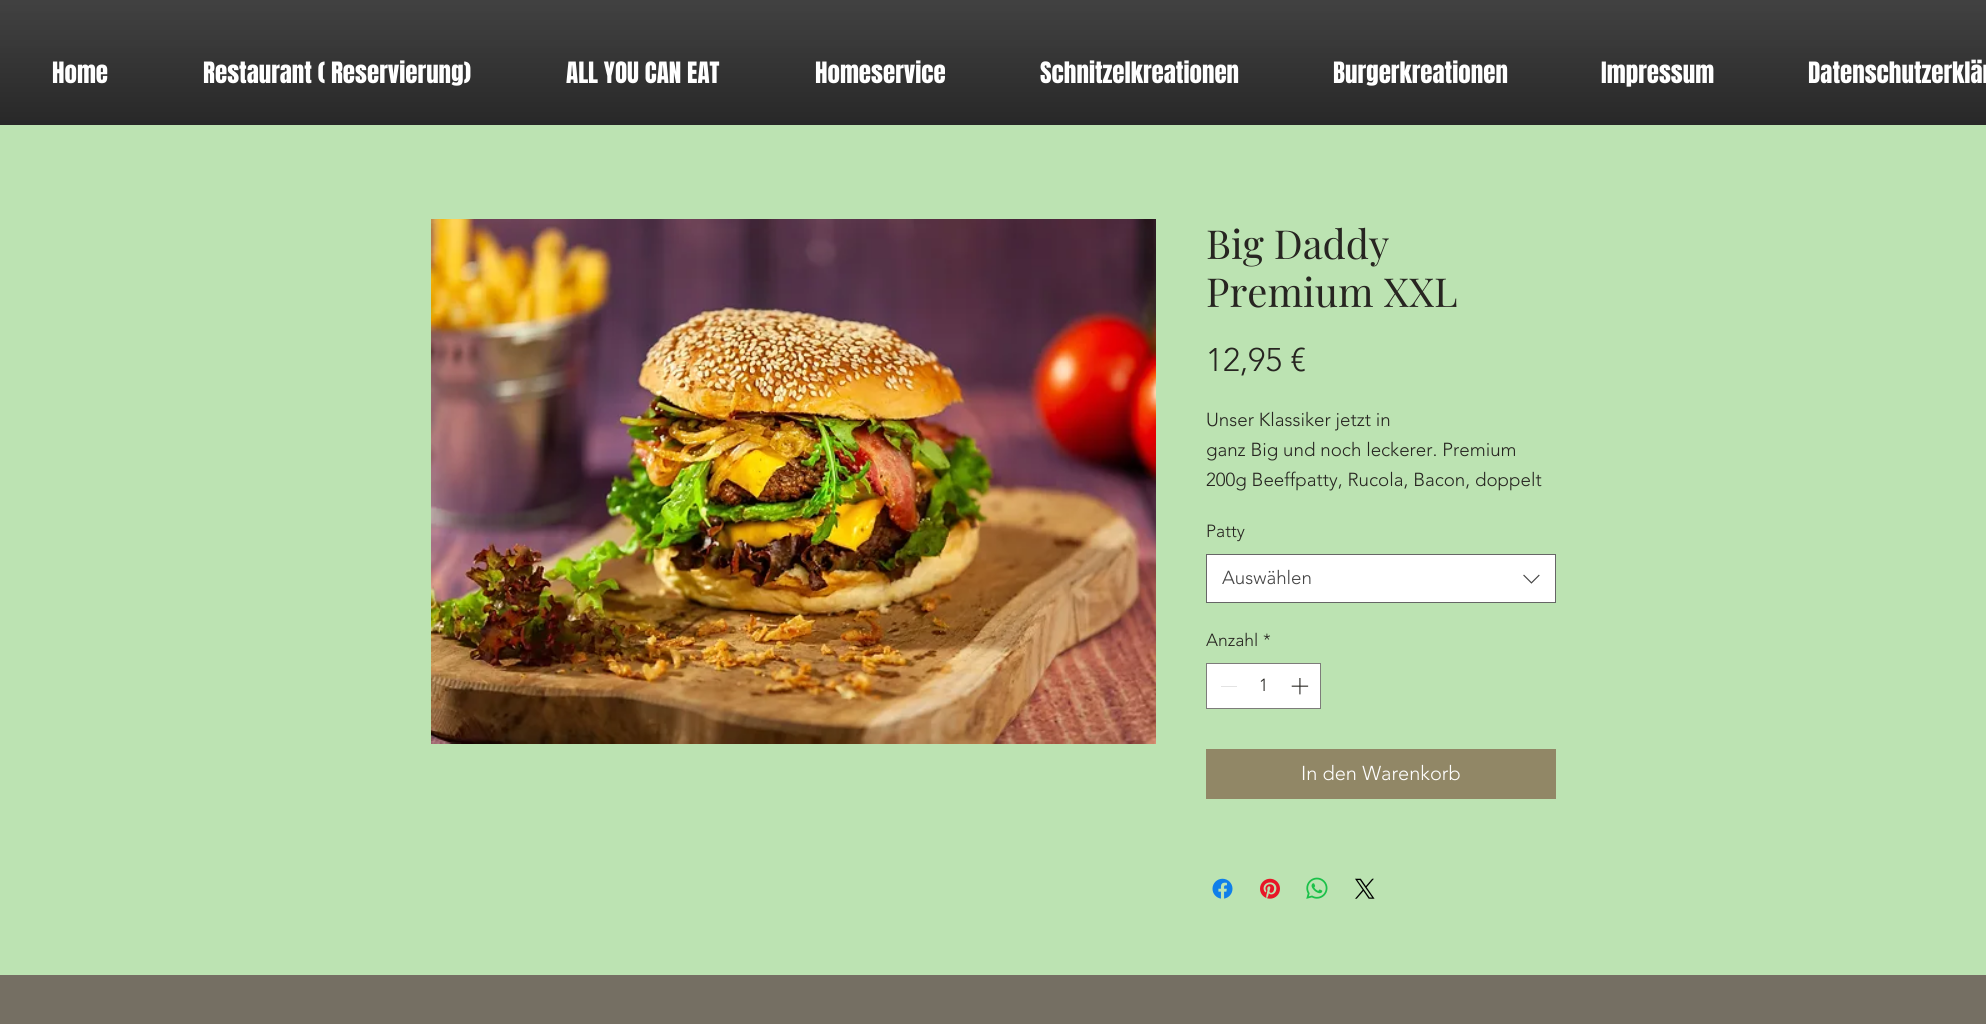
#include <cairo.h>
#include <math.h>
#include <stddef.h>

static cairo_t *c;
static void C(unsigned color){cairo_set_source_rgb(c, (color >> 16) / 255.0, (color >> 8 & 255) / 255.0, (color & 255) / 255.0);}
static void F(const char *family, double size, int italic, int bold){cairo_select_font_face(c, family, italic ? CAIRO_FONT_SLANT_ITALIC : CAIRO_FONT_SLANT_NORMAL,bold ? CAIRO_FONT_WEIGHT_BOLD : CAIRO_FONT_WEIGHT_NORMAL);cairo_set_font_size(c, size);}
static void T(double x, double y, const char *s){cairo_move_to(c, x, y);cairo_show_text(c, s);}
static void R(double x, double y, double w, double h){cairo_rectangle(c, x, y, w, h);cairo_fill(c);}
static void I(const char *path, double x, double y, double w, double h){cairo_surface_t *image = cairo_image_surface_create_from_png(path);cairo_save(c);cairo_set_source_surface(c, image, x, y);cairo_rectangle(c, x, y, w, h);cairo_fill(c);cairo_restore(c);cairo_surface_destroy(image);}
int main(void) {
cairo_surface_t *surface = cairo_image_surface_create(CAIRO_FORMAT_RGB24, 1986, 1024);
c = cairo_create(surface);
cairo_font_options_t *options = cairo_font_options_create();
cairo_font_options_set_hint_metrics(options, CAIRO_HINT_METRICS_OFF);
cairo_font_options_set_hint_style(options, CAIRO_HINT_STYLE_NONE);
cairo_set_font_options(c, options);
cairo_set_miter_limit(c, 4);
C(0xbce3b2);
cairo_paint(c);
C(0x000000);
R(0,0,1986,125);
I("1.png",0,0,1986,125);
F("Anton",25,0,0);
C(0xffffff);
T(52,83,"Home");
T(203,83,"Restaurant ( Reservierung)");
T(566,83,"ALL YOU CAN EAT");
T(815,83,"Homeservice");
T(1040,83,"Schnitzelkreationen");
T(1333,83,"Burgerkreationen");
T(1601,83,"Impressum");
T(1808,83,"Datenschutzerklär");
I("2.png",431,219,725,525);
F("Playfair Display",40,0,0);
C(0x272521);
T(1206,259,"Big Daddy");
T(1206,307,"Premium XXL");
F("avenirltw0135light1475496 Light",32.5,0,0);
T(1206,371,"12,95 €");
F("avenirltw0135light1475496 Light",18.75,0,0);
T(1206,426,"Unser Klassiker jetzt in");
T(1206,456,"ganz Big und noch leckerer. Premium");
T(1206,486,"200g Beeffpatty, Rucola, Bacon, doppelt");
F("avenirltw0135light1475496 Light",17.5,0,0);
T(1206,537,"Patty");
C(0xffffff);
cairo_rectangle(c,1206.5,554.5,349,48);
cairo_fill_preserve(c);
C(0x666666);
cairo_set_line_width(c,1);
cairo_stroke(c);
F("avenirltw0135light1475496 Light",18.75,0,0);
C(0x444444);
T(1222,584,"Auswählen");
I("3.png",1523,574,17,10);
F("avenirltw0135light1475496 Light",17.5,0,0);
C(0x272521);
T(1206,646,"Anzahl");
T(1263,646,"*");
C(0xffffff);
cairo_rectangle(c,1206.5,663.5,114,45);
cairo_fill_preserve(c);
C(0x7d7c7a);
cairo_stroke(c);
C(0xe3e3e3);
R(1221,686,16,1);
C(0x272521);
T(1259,691,"1");
I("4.png",1291,678,18,17);
C(0x918766);
R(1206,749,350,50);
F("avenirltw0135light1475496 Light",20,0,0);
C(0xffffff);
T(1301,780,"In den Warenkorb");
I("5.png",1212,878,21,21);
I("6.png",1260,878,20,21);
I("7.png",1306,877,22,22);
I("8.png",1355,878,20,21);
C(0x756f63);
R(0,975,1986,49);
cairo_surface_write_to_png(surface, "o.png");
cairo_font_options_destroy(options);
cairo_destroy(c);
cairo_surface_destroy(surface);
return 0;
}
